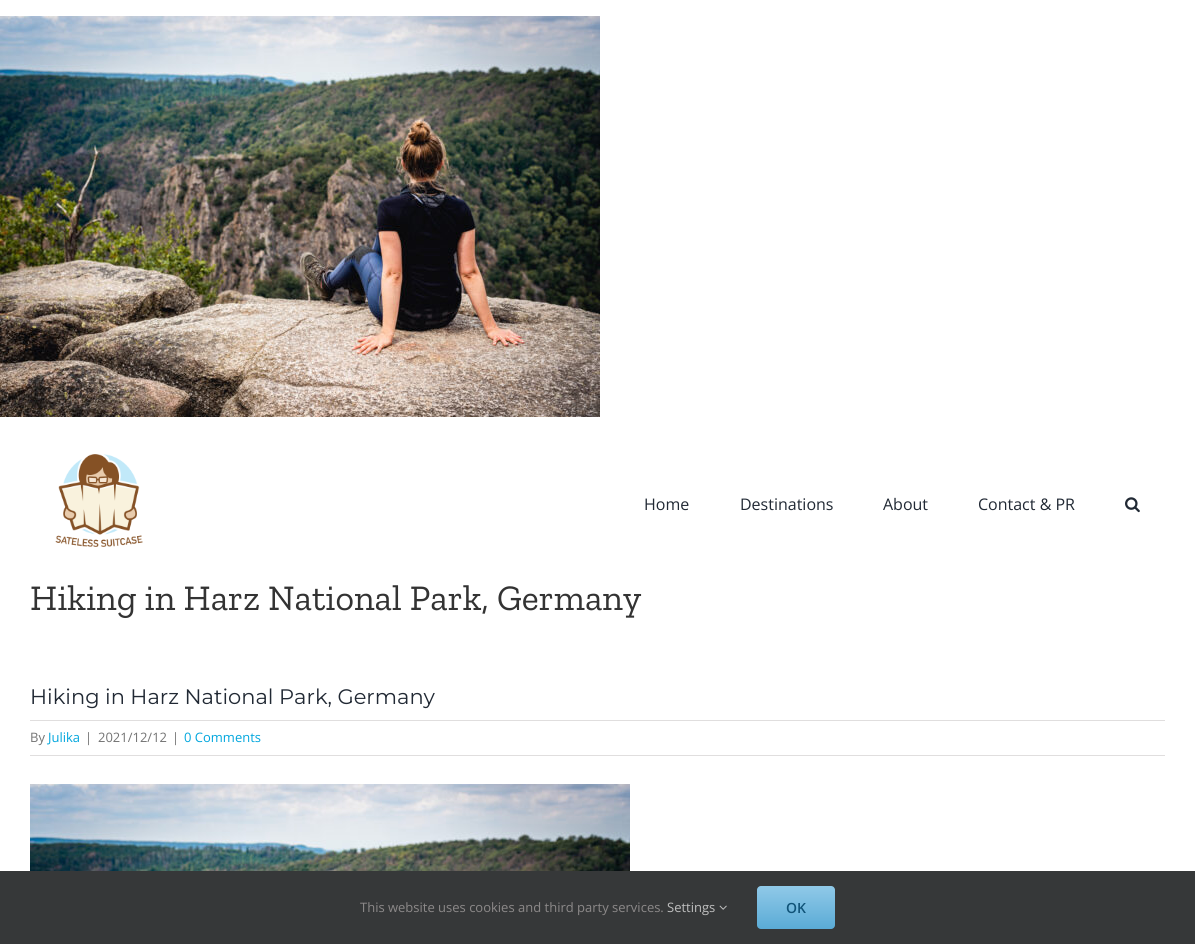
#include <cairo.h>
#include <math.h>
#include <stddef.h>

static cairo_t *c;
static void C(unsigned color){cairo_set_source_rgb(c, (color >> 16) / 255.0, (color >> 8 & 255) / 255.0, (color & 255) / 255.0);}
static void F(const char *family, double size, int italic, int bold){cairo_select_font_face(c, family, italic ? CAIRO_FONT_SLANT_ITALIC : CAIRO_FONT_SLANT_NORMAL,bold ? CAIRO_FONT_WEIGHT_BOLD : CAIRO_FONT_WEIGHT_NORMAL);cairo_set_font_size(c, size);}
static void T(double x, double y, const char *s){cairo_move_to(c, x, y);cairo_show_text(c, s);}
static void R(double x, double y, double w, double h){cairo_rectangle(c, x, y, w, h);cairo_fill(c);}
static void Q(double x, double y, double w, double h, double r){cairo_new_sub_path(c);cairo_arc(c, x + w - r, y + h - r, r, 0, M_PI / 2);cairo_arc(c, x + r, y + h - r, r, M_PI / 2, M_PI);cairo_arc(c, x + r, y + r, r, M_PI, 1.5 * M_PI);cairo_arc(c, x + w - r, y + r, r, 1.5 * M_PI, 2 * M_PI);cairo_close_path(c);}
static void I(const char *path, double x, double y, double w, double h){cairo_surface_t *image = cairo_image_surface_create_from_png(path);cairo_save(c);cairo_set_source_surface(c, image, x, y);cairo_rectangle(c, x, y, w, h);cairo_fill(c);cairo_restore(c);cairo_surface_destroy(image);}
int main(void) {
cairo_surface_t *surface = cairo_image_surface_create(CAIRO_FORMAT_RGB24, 1195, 944);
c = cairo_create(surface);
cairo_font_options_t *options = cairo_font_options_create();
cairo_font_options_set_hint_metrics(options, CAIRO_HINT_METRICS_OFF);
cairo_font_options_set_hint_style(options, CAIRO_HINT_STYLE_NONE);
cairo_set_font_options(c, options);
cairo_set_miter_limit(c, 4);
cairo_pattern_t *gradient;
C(0xffffff);
cairo_paint(c);
I("1.png",0,16,600,401);
I("2.png",55,454,88,93);
F("Open Sans",16,0,0);
C(0x212934);
T(644,510,"Home");
T(740,510,"Destinations");
T(883,510,"About");
T(978,510,"Contact & PR");
I("3.png",1125,497,15,16);
F("Zilla Slab",36,0,0);
C(0x333333);
T(30,610,"Hiking in Harz National Park, Germany");
F("Montserrat Thin",21,0,0);
C(0x212934);
T(30,704,"Hiking in Harz National Park, Germany");
C(0xe0dede);
R(30,720,1135,1);
R(30,755,1135,1);
F("Open Sans",13,0,0);
C(0x747474);
T(30,742,"By");
C(0x00a6dd);
T(48,742,"Julika");
C(0x747474);
T(85,742,"|");
T(98,742,"2021/12/12");
T(172,742,"|");
C(0x00a6dd);
T(184,742,"0 Comments");
I("4.png",30,784,600,87);
C(0x363839);
R(0,871,1195,73);
C(0x8c8989);
T(360,912,"This website uses cookies and third party services.");
C(0xbfbfbf);
T(667,912,"Settings");
I("5.png",719,905,8,5);
gradient = cairo_pattern_create_linear(796,886,796,929);
cairo_pattern_add_color_stop_rgba(gradient,0,0.565,0.788,0.91,1);
cairo_pattern_add_color_stop_rgba(gradient,1,0.353,0.671,0.839,1);
cairo_set_source(c,gradient);
cairo_pattern_destroy(gradient);
Q(757,886,78,43,4);
cairo_fill(c);
F("Open Sans SemiBold",14,0,0);
C(0x105378);
T(786,913,"OK");
cairo_surface_write_to_png(surface, "o.png");
cairo_font_options_destroy(options);
cairo_destroy(c);
cairo_surface_destroy(surface);
return 0;
}
